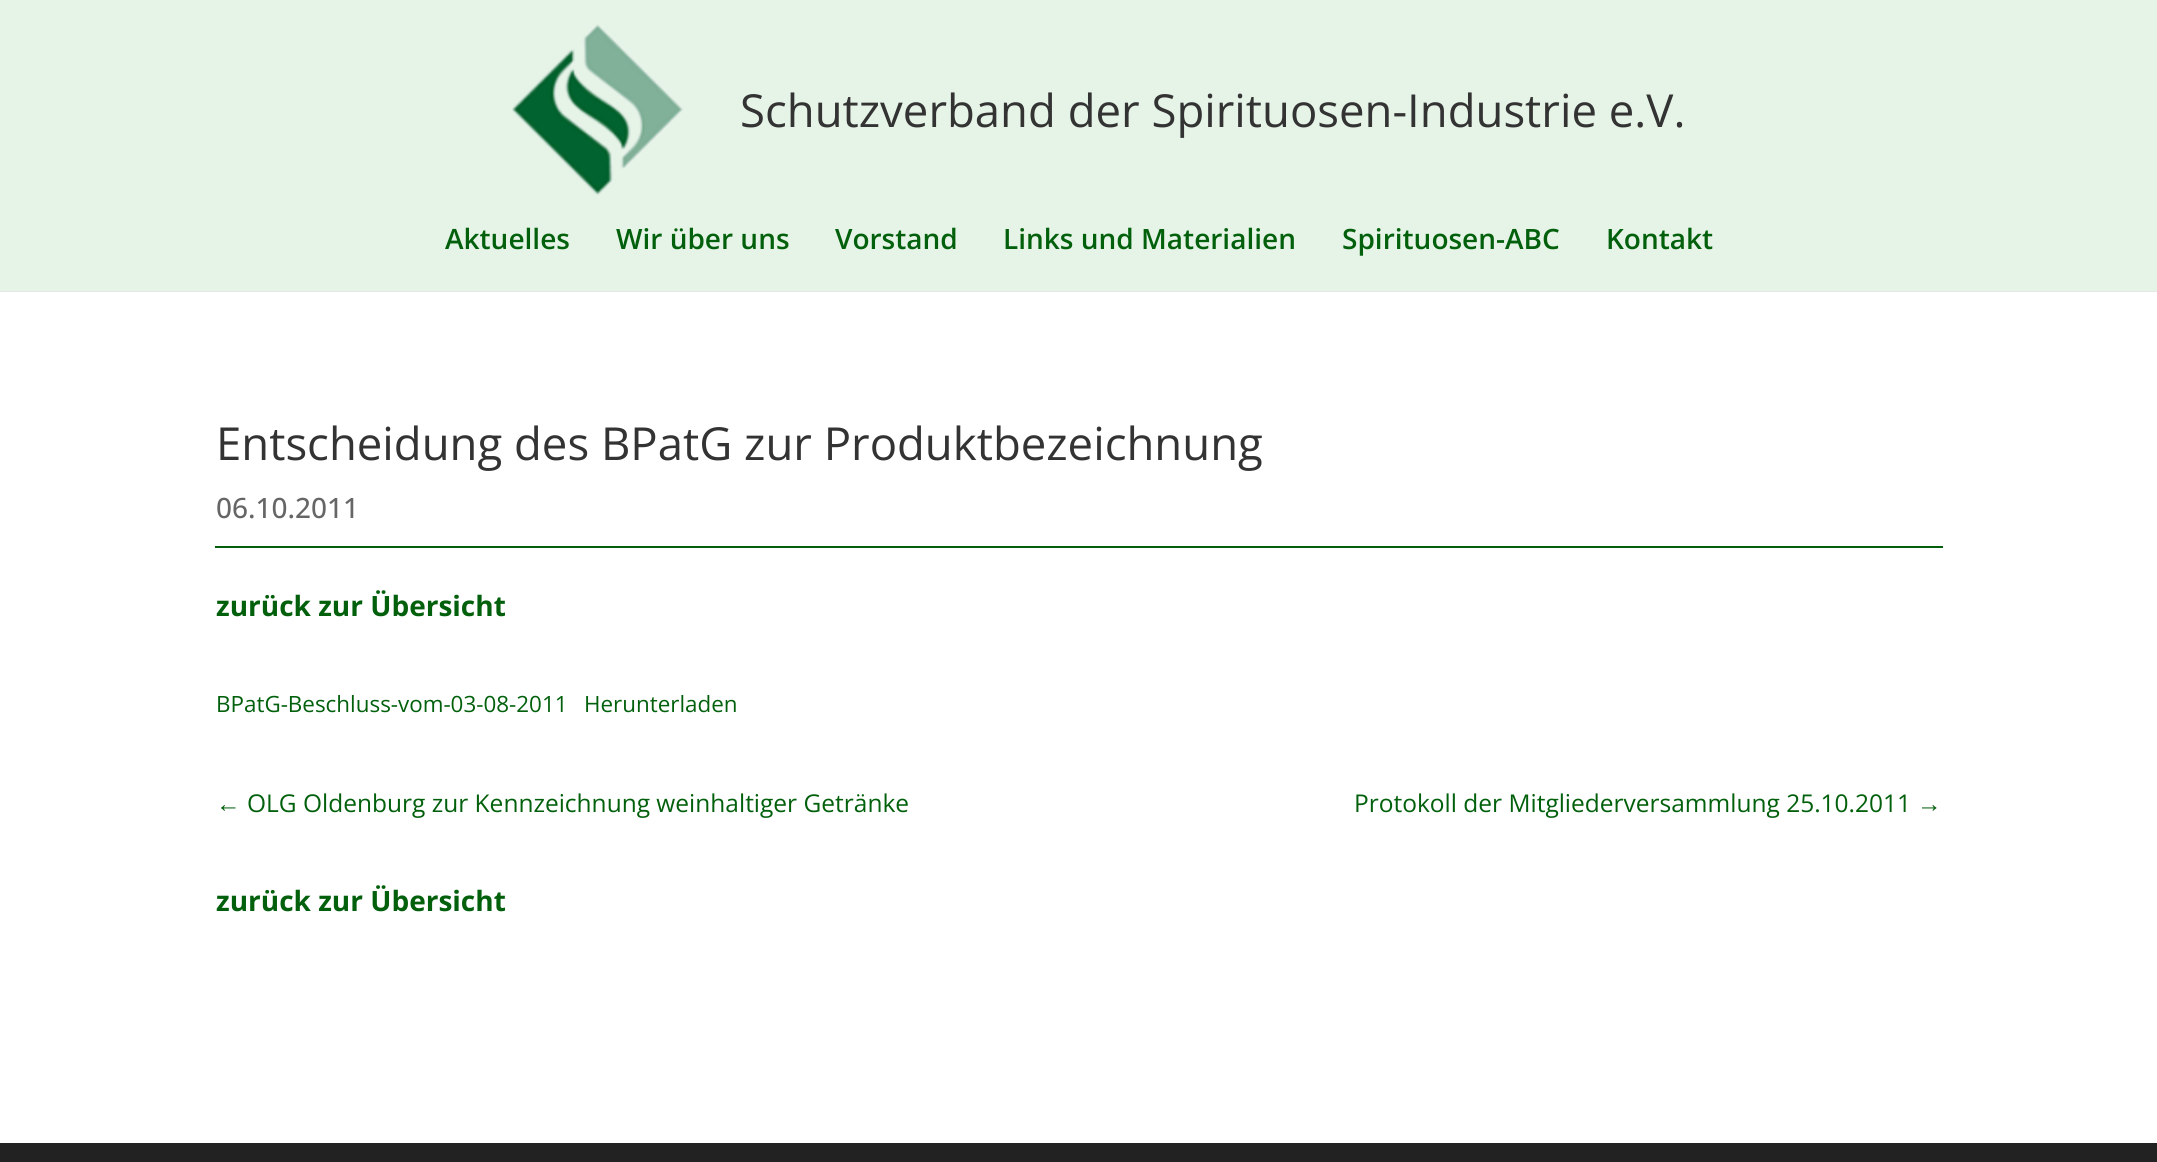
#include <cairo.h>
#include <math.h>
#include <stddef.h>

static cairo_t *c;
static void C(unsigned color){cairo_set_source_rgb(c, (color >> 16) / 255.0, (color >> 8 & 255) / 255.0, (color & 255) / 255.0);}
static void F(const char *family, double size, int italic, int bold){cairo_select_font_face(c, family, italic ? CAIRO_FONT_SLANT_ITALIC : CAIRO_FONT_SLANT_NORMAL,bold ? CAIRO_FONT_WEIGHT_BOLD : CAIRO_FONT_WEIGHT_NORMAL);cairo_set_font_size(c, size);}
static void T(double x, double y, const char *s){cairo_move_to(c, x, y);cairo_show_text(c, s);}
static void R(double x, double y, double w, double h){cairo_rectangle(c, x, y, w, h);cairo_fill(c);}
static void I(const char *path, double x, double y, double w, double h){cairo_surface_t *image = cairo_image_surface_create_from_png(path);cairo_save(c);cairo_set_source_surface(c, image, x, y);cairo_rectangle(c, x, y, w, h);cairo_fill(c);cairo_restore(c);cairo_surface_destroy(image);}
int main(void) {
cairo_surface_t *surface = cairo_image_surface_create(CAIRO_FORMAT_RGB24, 2157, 1162);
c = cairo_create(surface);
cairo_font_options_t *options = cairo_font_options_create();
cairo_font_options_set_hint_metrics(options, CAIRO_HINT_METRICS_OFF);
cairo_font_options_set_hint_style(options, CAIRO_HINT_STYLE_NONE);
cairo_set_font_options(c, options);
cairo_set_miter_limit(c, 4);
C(0xffffff);
cairo_paint(c);
C(0xe6e6e6);
cairo_new_path(c);
cairo_move_to(c,0,290);
cairo_line_to(c,0,292);
cairo_line_to(c,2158,292);
cairo_line_to(c,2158,2);
cairo_line_to(c,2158,290);
cairo_close_path(c);
cairo_fill(c);
C(0xe6f4e7);
R(0,0,2157,291);
I("1.png",512,24,171,171);
F("Open Sans",45.5,0,0);
C(0x333333);
T(740,127,"Schutzverband der Spirituosen-Industrie e.V.");
F("Open Sans SemiBold",28,0,0);
C(0x02600c);
T(445,249,"Aktuelles");
T(616,249,"Wir über uns");
T(835,249,"Vorstand");
T(1003,249,"Links und Materialien");
T(1342,249,"Spirituosen-ABC");
T(1606,249,"Kontakt");
F("Open Sans",45.5,0,0);
C(0x333333);
T(216,460,"Entscheidung des BPatG zur Produktbezeichnung");
F("Open Sans Medium",28,0,0);
C(0x666666);
T(216,518,"06.10.2011");
C(0x02600c);
R(215,546,1728,2);
F("Open Sans",28,0,1);
T(216,616,"zurück zur Übersicht");
F("Open Sans",22.4,0,0);
T(216,712,"BPatG-Beschluss-vom-03-08-2011");
T(584,712,"Herunterladen");
F("Liberation Sans",24.5,0,0);
T(216,812,"←");
F("Open Sans",24.5,0,0);
T(247,812,"OLG Oldenburg zur Kennzeichnung weinhaltiger Getränke");
T(1354,812,"Protokoll der Mitgliederversammlung 25.10.2011");
F("Liberation Sans",24.5,0,0);
T(1917,812,"→");
F("Open Sans",28,0,1);
T(216,911,"zurück zur Übersicht");
C(0x222222);
R(0,1143,2157,19);
cairo_surface_write_to_png(surface, "o.png");
cairo_font_options_destroy(options);
cairo_destroy(c);
cairo_surface_destroy(surface);
return 0;
}
